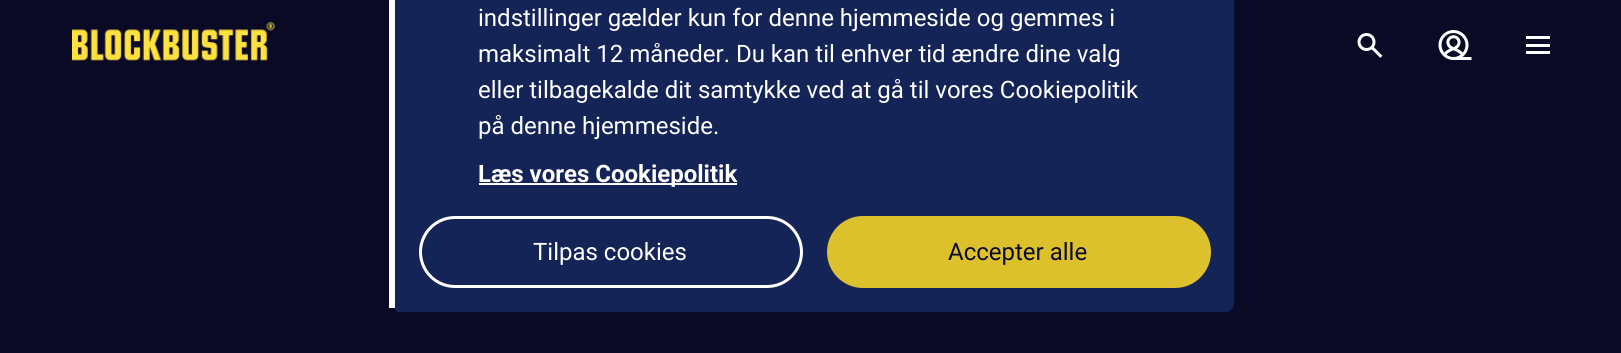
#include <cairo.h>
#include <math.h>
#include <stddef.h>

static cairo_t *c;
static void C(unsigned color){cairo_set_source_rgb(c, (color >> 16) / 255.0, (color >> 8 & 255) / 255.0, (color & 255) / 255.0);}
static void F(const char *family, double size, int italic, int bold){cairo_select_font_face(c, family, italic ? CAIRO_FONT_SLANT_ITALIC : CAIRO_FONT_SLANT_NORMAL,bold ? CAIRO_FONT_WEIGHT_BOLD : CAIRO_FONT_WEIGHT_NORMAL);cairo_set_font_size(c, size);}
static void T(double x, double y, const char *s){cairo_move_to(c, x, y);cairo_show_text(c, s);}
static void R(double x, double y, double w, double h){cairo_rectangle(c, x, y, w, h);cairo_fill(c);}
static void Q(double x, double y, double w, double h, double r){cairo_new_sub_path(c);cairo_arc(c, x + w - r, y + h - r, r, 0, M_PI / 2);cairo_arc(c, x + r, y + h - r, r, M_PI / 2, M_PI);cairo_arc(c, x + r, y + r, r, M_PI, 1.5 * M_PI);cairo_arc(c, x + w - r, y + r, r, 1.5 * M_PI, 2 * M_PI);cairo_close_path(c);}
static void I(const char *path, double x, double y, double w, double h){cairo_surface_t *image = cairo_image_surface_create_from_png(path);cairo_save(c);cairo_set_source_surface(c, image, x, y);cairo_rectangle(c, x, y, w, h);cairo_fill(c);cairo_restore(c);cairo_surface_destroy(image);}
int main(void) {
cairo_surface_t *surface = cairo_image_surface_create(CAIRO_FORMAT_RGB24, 1621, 353);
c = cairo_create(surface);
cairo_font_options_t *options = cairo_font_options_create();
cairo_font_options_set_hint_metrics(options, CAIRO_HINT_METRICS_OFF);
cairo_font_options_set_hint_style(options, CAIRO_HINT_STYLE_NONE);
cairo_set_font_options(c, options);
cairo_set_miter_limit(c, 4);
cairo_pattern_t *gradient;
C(0xffffff);
cairo_paint(c);
gradient = cairo_pattern_create_linear(811,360,811,-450);
cairo_pattern_add_color_stop_rgba(gradient,0,0.039,0.039,0.153,1);
cairo_pattern_add_color_stop_rgba(gradient,.5,0.039,0.039,0.153,1);
cairo_pattern_add_color_stop_rgba(gradient,1,0.039,0.039,0.153,0);
cairo_set_source(c,gradient);
cairo_pattern_destroy(gradient);
R(0,0,1621,353);
C(0x152457);
cairo_new_path(c);
cairo_move_to(c,398,-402);
cairo_line_to(c,1226,-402);
cairo_curve_to(c,1230,-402,1234,-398,1234,-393);
cairo_line_to(c,1234,303);
cairo_curve_to(c,1234,308,1230,312,1226,312);
cairo_line_to(c,398,312);
cairo_curve_to(c,396,312,394,308,394,303);
cairo_line_to(c,394,-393);
cairo_curve_to(c,394,-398,396,-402,398,-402);
cairo_close_path(c);
cairo_fill(c);
C(0xffffff);
R(389,0,6,308);
F("Roboto",24,0,0);
T(478,26,"indstillinger gælder kun for denne hjemmeside og gemmes i");
T(478,62,"maksimalt 12 måneder. Du kan til enhver tid ændre dine valg");
T(478,98,"eller tilbagekalde dit samtykke ved at gå til vores Cookiepolitik");
T(478,134,"på denne hjemmeside.");
R(479,183,258,2);
F("Roboto",24,0,1);
T(478,182,"Læs vores Cookiepolitik");
Q(420.5,217.5,381,69,34.5);
cairo_set_line_width(c,3);
cairo_stroke(c);
F("Roboto",24,0,0);
T(533,260,"Tilpas cookies");
C(0xddc12c);
Q(828.5,217.5,381,69,34.5);
cairo_fill_preserve(c);
cairo_stroke(c);
C(0x0a0a27);
T(948,260,"Accepter alle");
I("1.png",72,22,203,39);
I("2.png",1357,33,26,25);
I("3.png",1438,30,34,30);
C(0xffffff);
R(1526,51,24,3);
R(1526,36,24,3);
R(1526,44,24,3);
cairo_surface_write_to_png(surface, "o.png");
cairo_font_options_destroy(options);
cairo_destroy(c);
cairo_surface_destroy(surface);
return 0;
}
